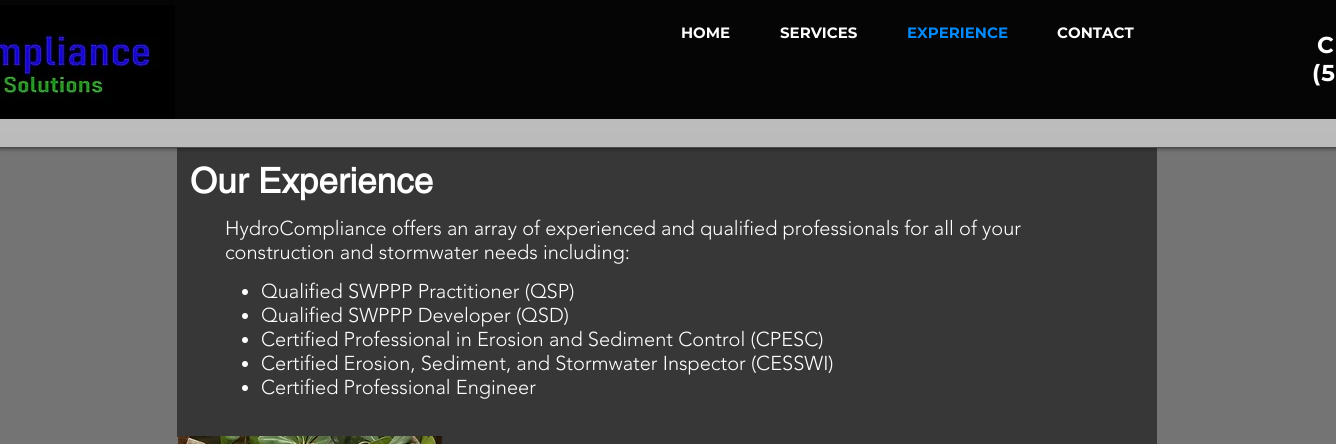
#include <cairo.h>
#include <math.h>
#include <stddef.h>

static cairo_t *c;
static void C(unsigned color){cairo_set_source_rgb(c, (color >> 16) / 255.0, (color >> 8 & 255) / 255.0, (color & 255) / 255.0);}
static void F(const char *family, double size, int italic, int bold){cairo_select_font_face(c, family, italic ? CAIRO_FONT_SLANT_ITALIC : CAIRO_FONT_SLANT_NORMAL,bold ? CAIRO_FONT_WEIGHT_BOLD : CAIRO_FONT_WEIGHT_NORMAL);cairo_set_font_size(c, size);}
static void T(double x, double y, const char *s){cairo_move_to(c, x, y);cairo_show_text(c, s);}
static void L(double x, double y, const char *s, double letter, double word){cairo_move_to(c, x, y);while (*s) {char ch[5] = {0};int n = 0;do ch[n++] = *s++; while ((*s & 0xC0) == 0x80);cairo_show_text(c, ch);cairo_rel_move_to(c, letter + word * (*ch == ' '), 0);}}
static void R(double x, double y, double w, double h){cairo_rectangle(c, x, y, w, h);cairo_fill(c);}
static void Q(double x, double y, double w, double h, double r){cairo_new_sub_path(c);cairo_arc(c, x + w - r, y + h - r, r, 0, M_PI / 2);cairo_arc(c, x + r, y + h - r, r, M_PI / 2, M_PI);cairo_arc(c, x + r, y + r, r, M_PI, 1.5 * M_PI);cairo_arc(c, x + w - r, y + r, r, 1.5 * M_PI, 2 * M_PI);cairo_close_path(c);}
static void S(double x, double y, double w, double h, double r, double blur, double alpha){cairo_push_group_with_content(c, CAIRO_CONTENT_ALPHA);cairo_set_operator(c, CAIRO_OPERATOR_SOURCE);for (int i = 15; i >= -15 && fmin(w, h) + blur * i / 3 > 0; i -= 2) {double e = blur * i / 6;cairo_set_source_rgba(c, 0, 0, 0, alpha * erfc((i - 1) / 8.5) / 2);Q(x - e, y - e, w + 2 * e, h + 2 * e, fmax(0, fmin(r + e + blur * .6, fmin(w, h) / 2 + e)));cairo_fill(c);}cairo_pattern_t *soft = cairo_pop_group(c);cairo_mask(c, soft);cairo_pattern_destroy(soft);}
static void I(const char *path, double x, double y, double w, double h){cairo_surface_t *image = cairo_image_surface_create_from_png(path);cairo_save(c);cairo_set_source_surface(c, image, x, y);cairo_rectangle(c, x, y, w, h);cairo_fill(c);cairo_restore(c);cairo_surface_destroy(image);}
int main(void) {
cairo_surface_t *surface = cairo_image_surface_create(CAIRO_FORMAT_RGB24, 1336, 444);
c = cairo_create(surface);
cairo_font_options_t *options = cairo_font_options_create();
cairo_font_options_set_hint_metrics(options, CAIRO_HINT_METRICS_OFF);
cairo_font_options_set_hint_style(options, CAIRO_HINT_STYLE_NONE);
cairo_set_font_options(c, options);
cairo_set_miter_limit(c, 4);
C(0x747474);
cairo_paint(c);
C(0x373737);
R(177,148,980,289);
C(0x000000);
S(0,0,1336,148,0,2.5,.6);
C(0xb2b2b2);
R(0,119,1336,28);
I("1.png",0,119,1336,28);
C(0x4b4b4b);
R(0,147,1336,1);
C(0x050505);
R(0,0,1336,119);
I("2.png",0,5,175,114);
F("Montserrat",15,0,1);
C(0xffffff);
T(681,38,"HOME");
T(780,38,"SERVICES");
C(0x008afc);
T(907,38,"EXPERIENCE");
C(0xffffff);
T(1057,38,"CONTACT");
F("Montserrat",23,0,1);
L(1317,53,"C",1,0);
L(1312,81,"(5",1,0);
F("helvetica",35,0,1);
T(190,193,"Our Experience");
F("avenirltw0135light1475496 Light",20,0,0);
T(225,235,"HydroCompliance offers an array of experienced and qualified professionals for all of your");
T(225,259,"construction and stormwater needs including:");
cairo_new_path(c);
cairo_arc(c,245,292,3,0,2 * M_PI);
cairo_fill(c);
T(261,298,"Qualified SWPPP Practitioner (QSP)");
cairo_new_path(c);
cairo_arc(c,245,316,3,0,2 * M_PI);
cairo_fill(c);
T(261,322,"Qualified SWPPP Developer (QSD)");
cairo_new_path(c);
cairo_arc(c,245,340,3,0,2 * M_PI);
cairo_fill(c);
T(261,346,"Certified Professional in Erosion and Sediment Control (CPESC)");
cairo_new_path(c);
cairo_arc(c,245,364,3,0,2 * M_PI);
cairo_fill(c);
T(261,370,"Certified Erosion, Sediment, and Stormwater Inspector (CESSWI)");
cairo_new_path(c);
cairo_arc(c,245,388,3,0,2 * M_PI);
cairo_fill(c);
T(261,394,"Certified Professional Engineer");
I("3.png",178,436,264,8);
C(0x373737);
R(442,437,715,7);
cairo_surface_write_to_png(surface, "o.png");
cairo_font_options_destroy(options);
cairo_destroy(c);
cairo_surface_destroy(surface);
return 0;
}
